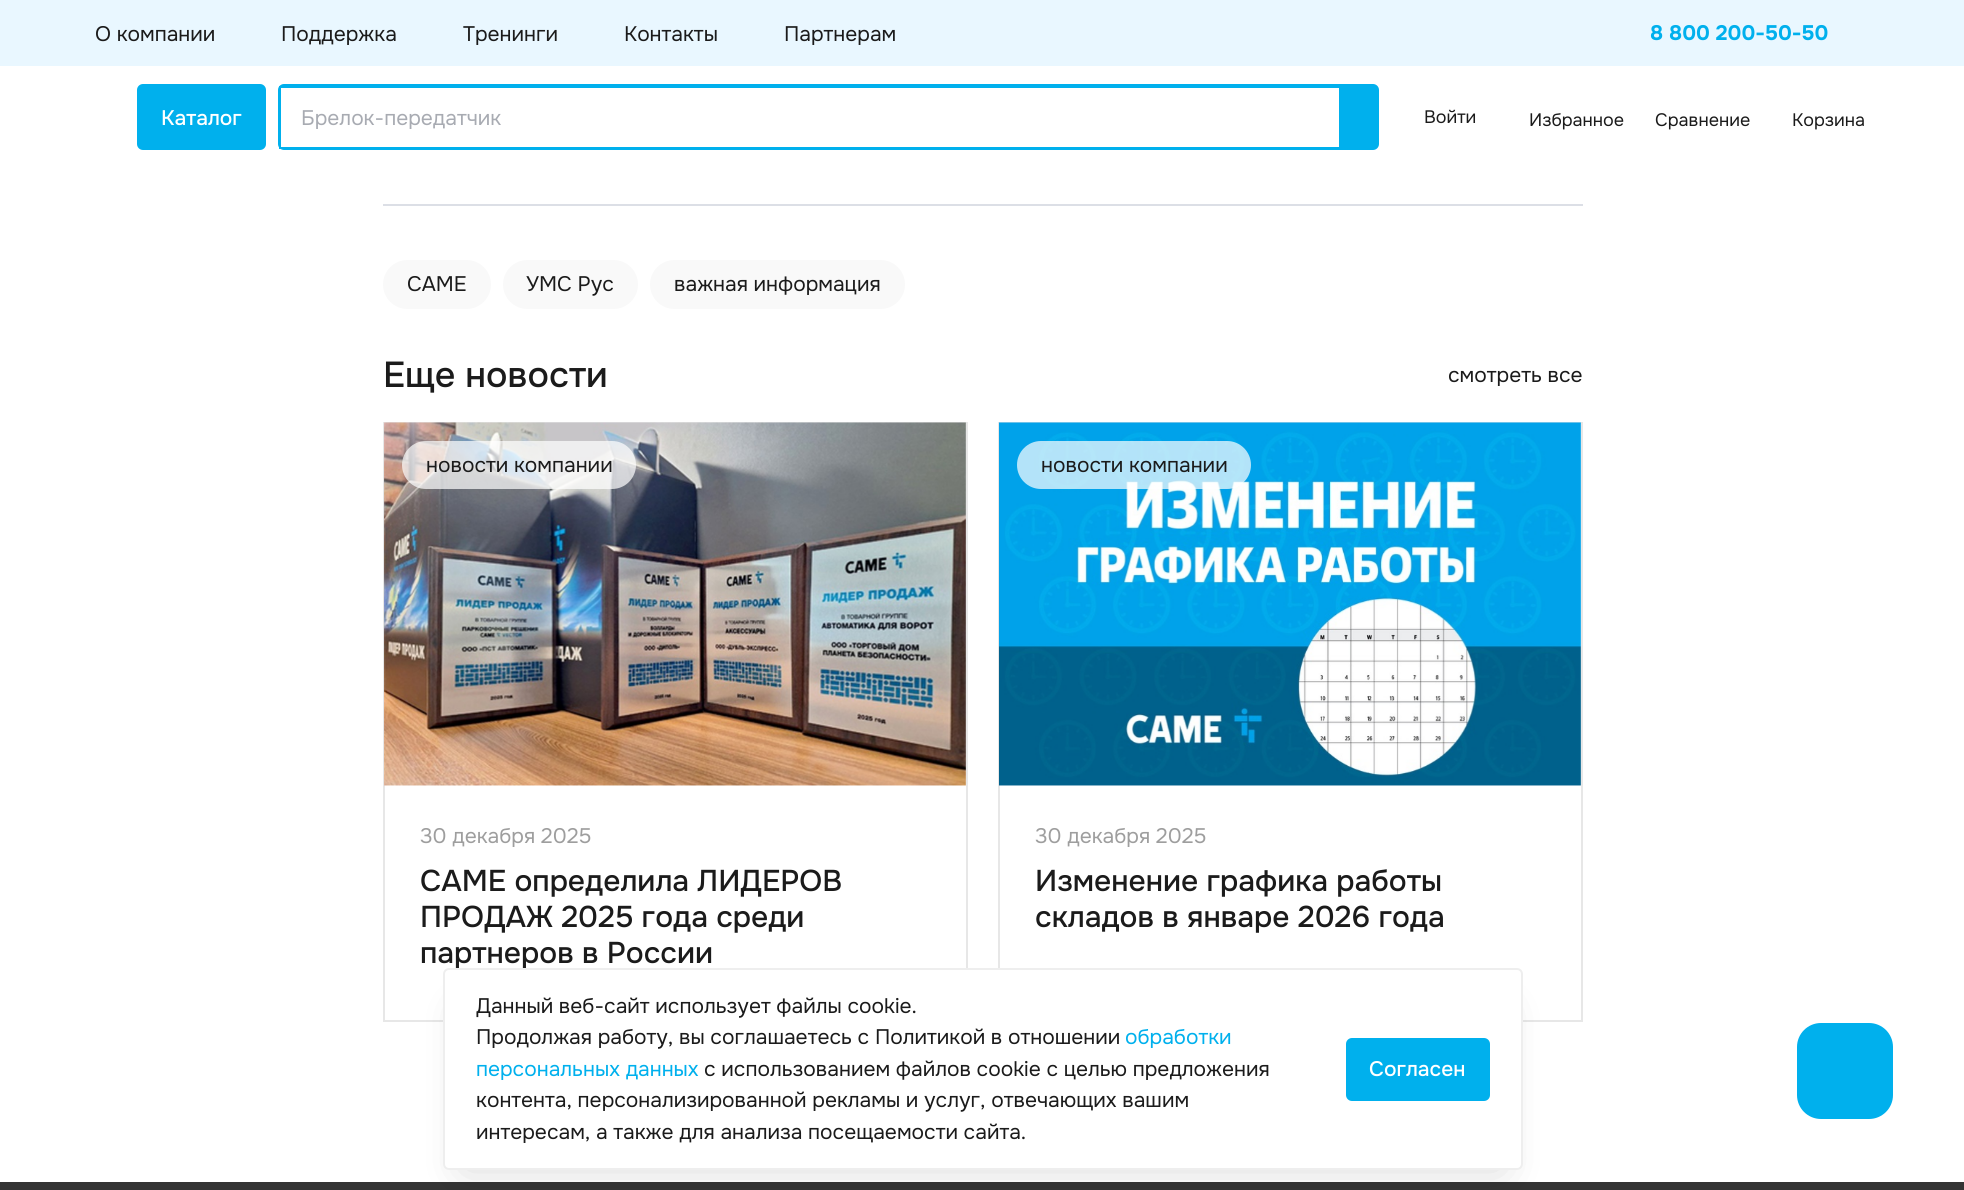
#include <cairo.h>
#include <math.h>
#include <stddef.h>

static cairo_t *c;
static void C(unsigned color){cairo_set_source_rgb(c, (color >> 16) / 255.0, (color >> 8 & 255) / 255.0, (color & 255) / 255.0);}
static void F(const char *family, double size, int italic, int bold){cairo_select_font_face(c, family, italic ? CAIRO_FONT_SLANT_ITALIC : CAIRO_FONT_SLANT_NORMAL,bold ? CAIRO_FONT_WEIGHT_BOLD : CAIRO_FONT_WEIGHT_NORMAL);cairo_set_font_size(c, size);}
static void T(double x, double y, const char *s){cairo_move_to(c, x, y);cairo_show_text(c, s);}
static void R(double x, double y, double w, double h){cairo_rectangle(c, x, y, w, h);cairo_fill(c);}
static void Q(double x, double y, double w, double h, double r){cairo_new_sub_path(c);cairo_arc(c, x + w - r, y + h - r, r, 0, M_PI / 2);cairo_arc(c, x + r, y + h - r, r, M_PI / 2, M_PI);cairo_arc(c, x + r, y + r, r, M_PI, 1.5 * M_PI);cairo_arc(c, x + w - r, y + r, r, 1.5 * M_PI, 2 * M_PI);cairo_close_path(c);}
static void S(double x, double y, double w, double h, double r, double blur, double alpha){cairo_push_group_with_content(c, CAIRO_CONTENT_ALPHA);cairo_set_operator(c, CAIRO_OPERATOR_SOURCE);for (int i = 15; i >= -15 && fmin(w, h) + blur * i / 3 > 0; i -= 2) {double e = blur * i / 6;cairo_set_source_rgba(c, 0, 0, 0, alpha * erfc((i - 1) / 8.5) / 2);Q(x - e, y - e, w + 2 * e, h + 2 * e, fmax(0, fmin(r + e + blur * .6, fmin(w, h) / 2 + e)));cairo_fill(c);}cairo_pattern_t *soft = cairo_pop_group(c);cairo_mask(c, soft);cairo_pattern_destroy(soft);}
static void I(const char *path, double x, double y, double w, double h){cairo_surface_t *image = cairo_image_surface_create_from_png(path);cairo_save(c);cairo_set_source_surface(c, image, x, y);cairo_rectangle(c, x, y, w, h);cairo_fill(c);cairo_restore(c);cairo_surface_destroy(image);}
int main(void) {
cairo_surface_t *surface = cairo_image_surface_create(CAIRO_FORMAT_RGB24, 1964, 1190);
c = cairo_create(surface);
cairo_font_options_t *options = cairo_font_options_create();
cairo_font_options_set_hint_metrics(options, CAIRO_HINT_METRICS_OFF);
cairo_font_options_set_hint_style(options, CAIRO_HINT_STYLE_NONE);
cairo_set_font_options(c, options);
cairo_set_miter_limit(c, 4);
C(0xffffff);
cairo_paint(c);
C(0xe9f7ff);
R(0,0,1964,66);
F("Onest",21,0,0);
C(0x1b1b1b);
T(95,41,"О компании");
T(281,41,"Поддержка");
T(463,41,"Тренинги");
T(624,41,"Контакты");
T(784,41,"Партнерам");
F("Onest",21,0,1);
C(0x00b0ed);
T(1650,40,"8 800 200-50-50");
Q(138,85,127,64,5);
cairo_fill_preserve(c);
cairo_stroke(c);
F("Onest Medium",21,0,0);
C(0xffffff);
T(161,125,"Каталог");
C(0x00b0ed);
Q(279,85,1099,64,5);
cairo_fill_preserve(c);
cairo_stroke(c);
C(0xffffff);
cairo_rectangle(c,280,87,1060,61);
cairo_fill_preserve(c);
C(0x00b0ed);
cairo_stroke(c);
F("Onest",21,0,0);
C(0xa8abb2);
T(301,125,"Брелок-передатчик");
F("Onest",18,0,0);
C(0x1b1b1b);
T(1424,123,"Войти");
T(1529,126,"Избранное");
T(1655,126,"Сравнение");
T(1792,126,"Корзина");
C(0xdcdfe6);
R(383,204,1200,2);
C(0xf9f9f9);
Q(383,260,108,49,24.5);
cairo_fill(c);
F("Onest",21,0,0);
C(0x1b1b1b);
T(407,291,"CAME");
C(0xf9f9f9);
Q(503,260,135,49,24.5);
cairo_fill(c);
C(0x1b1b1b);
T(526,291,"УМС Рус");
C(0xf9f9f9);
Q(650,260,255,49,24.5);
cairo_fill(c);
C(0x1b1b1b);
T(674,291,"важная информация");
F("Onest Medium",36,0,0);
T(383,387,"Еще новости");
F("Onest",21,0,0);
T(1448,382,"смотреть все");
cairo_rectangle(c,384,423,583,598);
C(0xe7e7e7);
cairo_stroke(c);
I("1.png",384,422,582,364);
cairo_set_source_rgba(c,1,1,1,0.7);
Q(402,441,234,48,24);
cairo_fill(c);
C(0x1b1b1b);
T(426,472,"новости компании");
C(0x9e9e9e);
T(420,843,"30 декабря 2025");
F("Onest Medium",30,0,0);
C(0x1b1b1b);
T(420,891,"CAME определила ЛИДЕРОВ");
T(420,927,"ПРОДАЖ 2025 года среди");
T(420,963,"партнеров в России");
cairo_rectangle(c,999,423,583,598);
C(0xe7e7e7);
cairo_stroke(c);
I("2.png",999,422,582,364);
cairo_set_source_rgba(c,1,1,1,0.7);
Q(1017,441,234,48,24);
cairo_fill(c);
F("Onest",21,0,0);
C(0x1b1b1b);
T(1041,472,"новости компании");
C(0x9e9e9e);
T(1035,843,"30 декабря 2025");
F("Onest Medium",30,0,0);
C(0x1b1b1b);
T(1035,891,"Изменение графика работы");
T(1035,927,"складов в январе 2026 года");
C(0x343434);
R(0,1182,1964,8);
C(0x000000);
S(464,1010,1038,160,0,21,.15);
C(0xffffff);
Q(444,969,1078,200,5);
cairo_fill_preserve(c);
C(0xeeeeee);
cairo_stroke(c);
F("Onest",21,0,0);
C(0x1b1b1b);
T(476,1013,"Данный веб-сайт использует файлы cookie.");
T(476,1044,"Продолжая работу, вы соглашаетесь с Политикой в отношении");
C(0x00b0ed);
T(1125,1044,"обработки");
T(476,1076,"персональных данных");
C(0x1b1b1b);
T(704,1076,"с использованием файлов cookie с целью предложения");
T(476,1107,"контента, персонализированной рекламы и услуг, отвечающих вашим");
T(476,1139,"интересам, а также для анализа посещаемости сайта.");
C(0x00b0ed);
Q(1347,1039,142,61,5);
cairo_fill_preserve(c);
cairo_stroke(c);
F("Onest Medium",21,0,0);
C(0xffffff);
T(1369,1076,"Согласен");
C(0x00b0ed);
Q(1797,1023,96,96,24);
cairo_fill(c);
cairo_surface_write_to_png(surface, "o.png");
cairo_font_options_destroy(options);
cairo_destroy(c);
cairo_surface_destroy(surface);
return 0;
}
